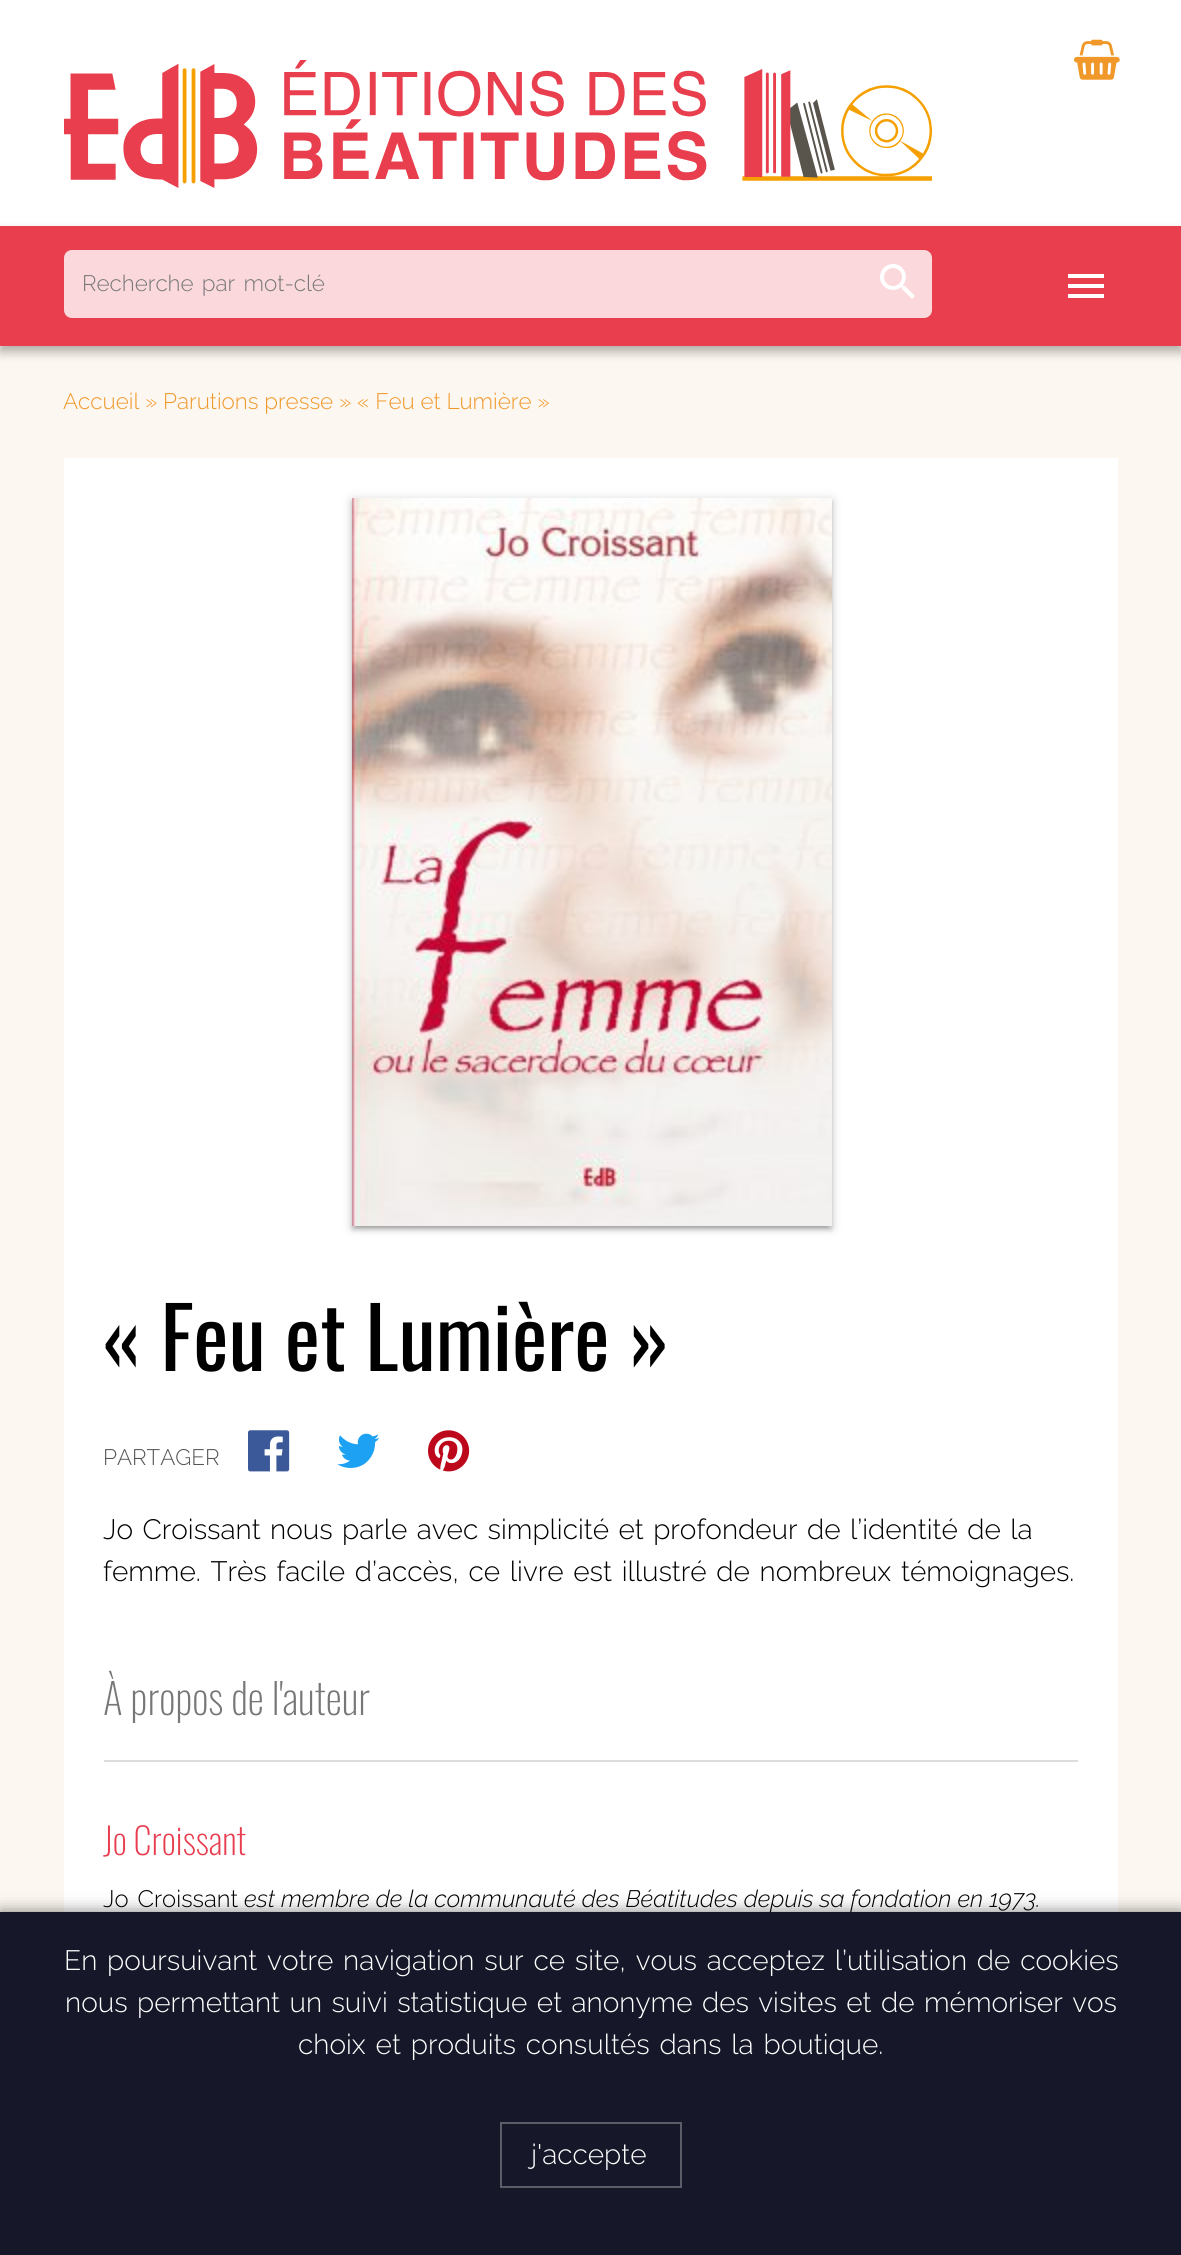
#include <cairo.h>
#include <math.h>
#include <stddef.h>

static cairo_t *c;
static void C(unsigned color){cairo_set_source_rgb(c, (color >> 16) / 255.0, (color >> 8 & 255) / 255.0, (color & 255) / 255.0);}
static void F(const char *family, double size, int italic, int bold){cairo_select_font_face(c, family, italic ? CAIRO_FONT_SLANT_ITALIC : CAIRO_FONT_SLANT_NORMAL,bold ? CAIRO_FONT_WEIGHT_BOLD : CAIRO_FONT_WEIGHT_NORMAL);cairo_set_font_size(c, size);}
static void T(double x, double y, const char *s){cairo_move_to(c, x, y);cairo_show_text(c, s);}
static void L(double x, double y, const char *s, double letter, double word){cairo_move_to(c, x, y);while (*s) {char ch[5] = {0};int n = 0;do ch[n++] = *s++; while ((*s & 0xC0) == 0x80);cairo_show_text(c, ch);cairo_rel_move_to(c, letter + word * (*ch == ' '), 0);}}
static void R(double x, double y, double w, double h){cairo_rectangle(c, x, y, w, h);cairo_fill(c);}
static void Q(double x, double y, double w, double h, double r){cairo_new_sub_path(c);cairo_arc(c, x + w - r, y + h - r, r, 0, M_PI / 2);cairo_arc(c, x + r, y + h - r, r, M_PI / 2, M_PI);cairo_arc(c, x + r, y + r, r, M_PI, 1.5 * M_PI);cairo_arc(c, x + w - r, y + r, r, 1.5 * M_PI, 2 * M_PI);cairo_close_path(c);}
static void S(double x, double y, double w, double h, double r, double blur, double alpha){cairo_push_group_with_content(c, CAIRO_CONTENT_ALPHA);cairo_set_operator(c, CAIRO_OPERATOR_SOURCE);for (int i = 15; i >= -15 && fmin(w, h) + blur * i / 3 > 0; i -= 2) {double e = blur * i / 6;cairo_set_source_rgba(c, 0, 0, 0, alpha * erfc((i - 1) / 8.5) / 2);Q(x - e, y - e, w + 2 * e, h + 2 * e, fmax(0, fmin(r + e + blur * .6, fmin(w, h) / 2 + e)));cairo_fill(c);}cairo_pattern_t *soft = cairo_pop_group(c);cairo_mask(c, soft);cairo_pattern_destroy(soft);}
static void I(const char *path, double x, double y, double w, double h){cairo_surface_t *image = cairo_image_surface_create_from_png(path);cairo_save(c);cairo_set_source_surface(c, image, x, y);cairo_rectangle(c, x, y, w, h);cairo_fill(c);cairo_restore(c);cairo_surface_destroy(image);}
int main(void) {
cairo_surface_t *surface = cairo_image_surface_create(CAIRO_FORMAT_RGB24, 1181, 2255);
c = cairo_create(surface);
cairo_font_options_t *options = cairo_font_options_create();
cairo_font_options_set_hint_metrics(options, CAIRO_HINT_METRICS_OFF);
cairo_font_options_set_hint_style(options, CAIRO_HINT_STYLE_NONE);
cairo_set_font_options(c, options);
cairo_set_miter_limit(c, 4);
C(0xfcf7f0);
cairo_paint(c);
C(0xfefffe);
R(0,0,1181,226);
I("1.png",64,60,868,128);
I("2.png",1074,39,46,41);
C(0x000000);
S(0,232,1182,120,0,5,.3);
C(0xe83e4e);
R(0,226,1181,120);
C(0xfad8db);
Q(65,251,866,66,7);
cairo_fill_preserve(c);
cairo_stroke(c);
F("Raleway Light",22.4,0,0);
C(0x777777);
L(82,291,"Recherche par mot-clé",0,2.5);
I("3.png",880,264,35,35);
C(0xffffff);
cairo_new_path(c);
cairo_move_to(c,1068,274);
cairo_line_to(c,1104,274);
cairo_line_to(c,1104,278);
cairo_line_to(c,1068,278);
cairo_close_path(c);
cairo_move_to(c,1068,288);
cairo_line_to(c,1068,284);
cairo_line_to(c,1104,284);
cairo_line_to(c,1104,288);
cairo_close_path(c);
cairo_move_to(c,1068,298);
cairo_line_to(c,1068,294);
cairo_line_to(c,1104,294);
cairo_line_to(c,1104,298);
cairo_close_path(c);
cairo_fill(c);
C(0xf1982b);
T(63,409,"Accueil » Parutions presse » « Feu et Lumière »");
C(0xffffff);
R(64,458,1054,1454);
C(0x000000);
S(352,500,480,728,0,5,.2);
S(356,508,472,720,0,1,.12);
S(352,502,480,728,0,2,.14);
I("4.png",352,498,480,728);
F("Oswald",84,0,0);
C(0x000000);
T(103,1371,"« Feu et Lumière »");
F("Raleway Light",22.4,0,0);
C(0x555555);
T(103,1465,"PARTAGER");
I("5.png",248,1430,42,42);
I("6.png",337,1433,43,35);
I("7.png",428,1430,42,42);
F("Raleway Light",28,0,0);
C(0x000000);
L(103,1539,"Jo Croissant nous parle avec simplicité et profondeur de l’identité de la",0,2.25);
L(103,1581,"femme. Très facile d’accès, ce livre est illustré de nombreux témoignages.",0,2.5);
C(0xdddddd);
R(104,1760,974,2);
F("Oswald ExtraLight",42,0,0);
C(0x777777);
T(103,1715,"À propos de l'auteur");
F("Oswald ExtraLight",36.5,0,0);
C(0xe83d4e);
T(103,1855,"Jo Croissant");
F("Raleway Light",23.8,0,0);
C(0x000000);
L(103,1907,"Jo Croissant",0,3);
F("Raleway Light",23.8,1,0);
T(244,1907,"est membre de la communauté des Béatitudes depuis sa fondation en 1973.");
C(0x000000);
S(0,1912,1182,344,0,8,.5);
C(0x161829);
R(0,1912,1181,343);
F("Raleway Light",28,0,0);
C(0xffffff);
L(64,1970,"En poursuivant votre navigation sur ce site, vous acceptez l’utilisation de cookies",0,2.6);
L(65,2012,"nous permettant un suivi statistique et anonyme des visites et de mémoriser vos",0,2.25);
L(298,2054,"choix et produits consultés dans la boutique.",0,2.75);
cairo_rectangle(c,501,2123,180,64);
C(0x5c5d69);
cairo_stroke(c);
C(0xffffff);
T(531,2164,"j'accepte");
cairo_surface_write_to_png(surface, "o.png");
cairo_font_options_destroy(options);
cairo_destroy(c);
cairo_surface_destroy(surface);
return 0;
}
